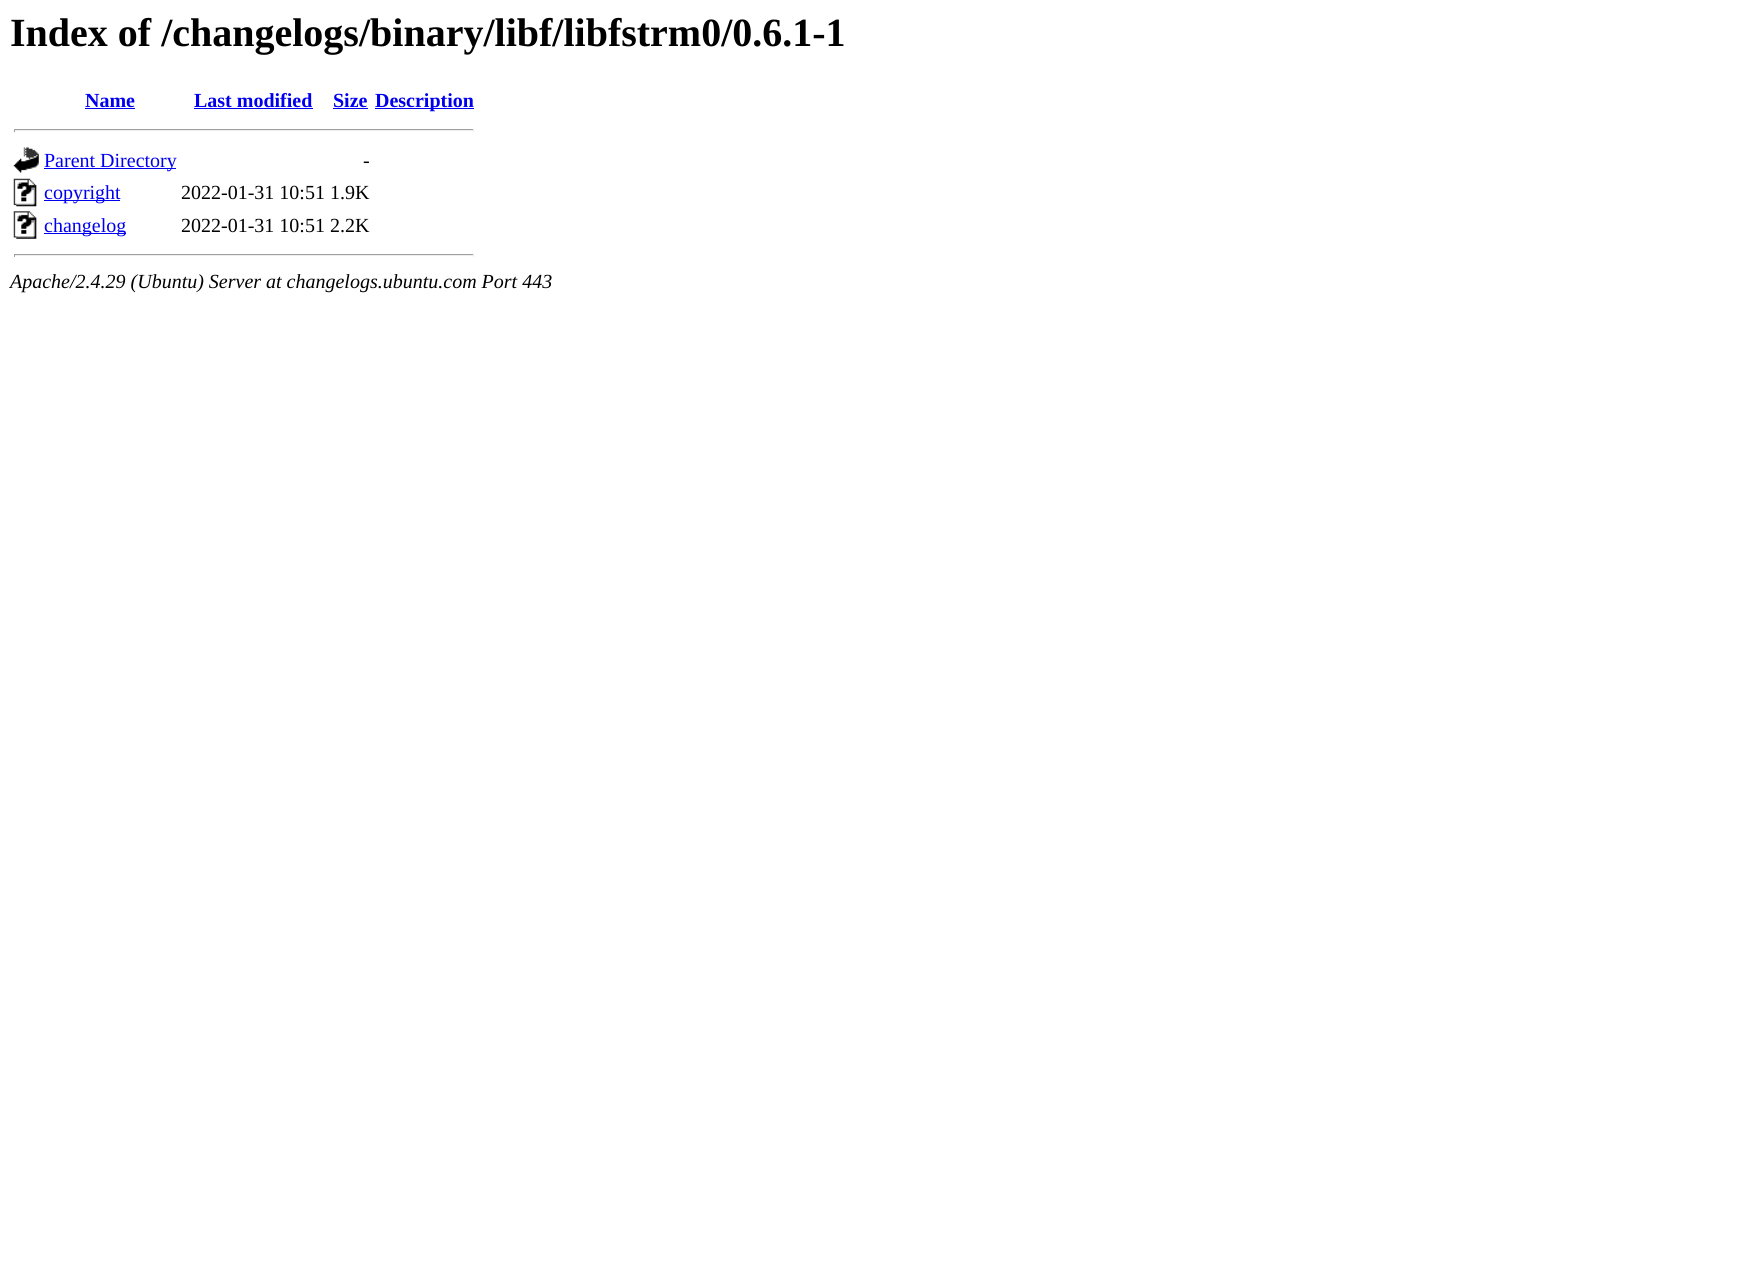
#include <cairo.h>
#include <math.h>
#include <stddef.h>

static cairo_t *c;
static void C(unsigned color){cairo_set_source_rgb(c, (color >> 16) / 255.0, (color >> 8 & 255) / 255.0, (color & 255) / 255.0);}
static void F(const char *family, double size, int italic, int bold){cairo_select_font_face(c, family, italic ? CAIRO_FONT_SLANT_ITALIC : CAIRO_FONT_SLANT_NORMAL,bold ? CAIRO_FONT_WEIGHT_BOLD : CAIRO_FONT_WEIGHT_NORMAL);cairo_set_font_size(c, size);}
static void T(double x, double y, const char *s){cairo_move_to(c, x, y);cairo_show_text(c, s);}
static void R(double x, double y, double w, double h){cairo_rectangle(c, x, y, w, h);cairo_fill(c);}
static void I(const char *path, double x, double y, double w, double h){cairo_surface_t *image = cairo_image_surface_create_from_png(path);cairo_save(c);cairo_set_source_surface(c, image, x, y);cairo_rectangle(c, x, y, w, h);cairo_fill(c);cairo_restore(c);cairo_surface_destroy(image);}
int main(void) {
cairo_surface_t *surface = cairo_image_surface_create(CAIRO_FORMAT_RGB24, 1760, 1270);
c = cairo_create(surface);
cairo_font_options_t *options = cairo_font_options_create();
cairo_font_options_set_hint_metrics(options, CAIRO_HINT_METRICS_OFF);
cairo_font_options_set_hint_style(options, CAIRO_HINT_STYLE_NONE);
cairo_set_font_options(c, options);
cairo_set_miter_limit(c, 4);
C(0xffffff);
cairo_paint(c);
F("Liberation Serif",40,0,1);
C(0x000000);
T(10,46,"Index of /changelogs/binary/libf/libfstrm0/0.6.1-1");
F("Liberation Serif",20,0,1);
C(0x0000ee);
T(85,107,"Name");
R(85,108,50,1);
T(194,107,"Last modified");
R(194,108,119,1);
T(333,107,"Size");
R(333,108,35,1);
R(375,108,99,1);
T(375,107,"Description");
C(0x9f9f9f);
R(14,129,460,1);
C(0xeeeeee);
R(473,129,1,3);
R(14,130,460,1);
C(0x9f9f9f);
R(14,129,1,3);
I("1.png",13,147,26,26);
C(0x0000ee);
R(44,168,132,1);
F("Liberation Serif",20,0,0);
T(44,167,"Parent Directory");
C(0x000000);
T(363,167,"-");
I("2.png",13,178,24,29);
C(0x0000ee);
R(44,200,76,1);
T(44,199,"copyright");
C(0x000000);
T(181,199,"2022-01-31 10:51 1.9K");
I("3.png",13,211,24,28);
C(0x0000ee);
R(44,233,82,1);
T(44,232,"changelog");
C(0x000000);
T(181,232,"2022-01-31 10:51 2.2K");
C(0x9f9f9f);
R(14,254,460,1);
C(0xeeeeee);
R(473,254,1,3);
R(14,255,460,1);
C(0x9f9f9f);
R(14,254,1,3);
F("Liberation Serif",20,1,0);
C(0x000000);
T(10,288,"Apache/2.4.29 (Ubuntu) Server at changelogs.ubuntu.com Port 443");
cairo_surface_write_to_png(surface, "o.png");
cairo_font_options_destroy(options);
cairo_destroy(c);
cairo_surface_destroy(surface);
return 0;
}
